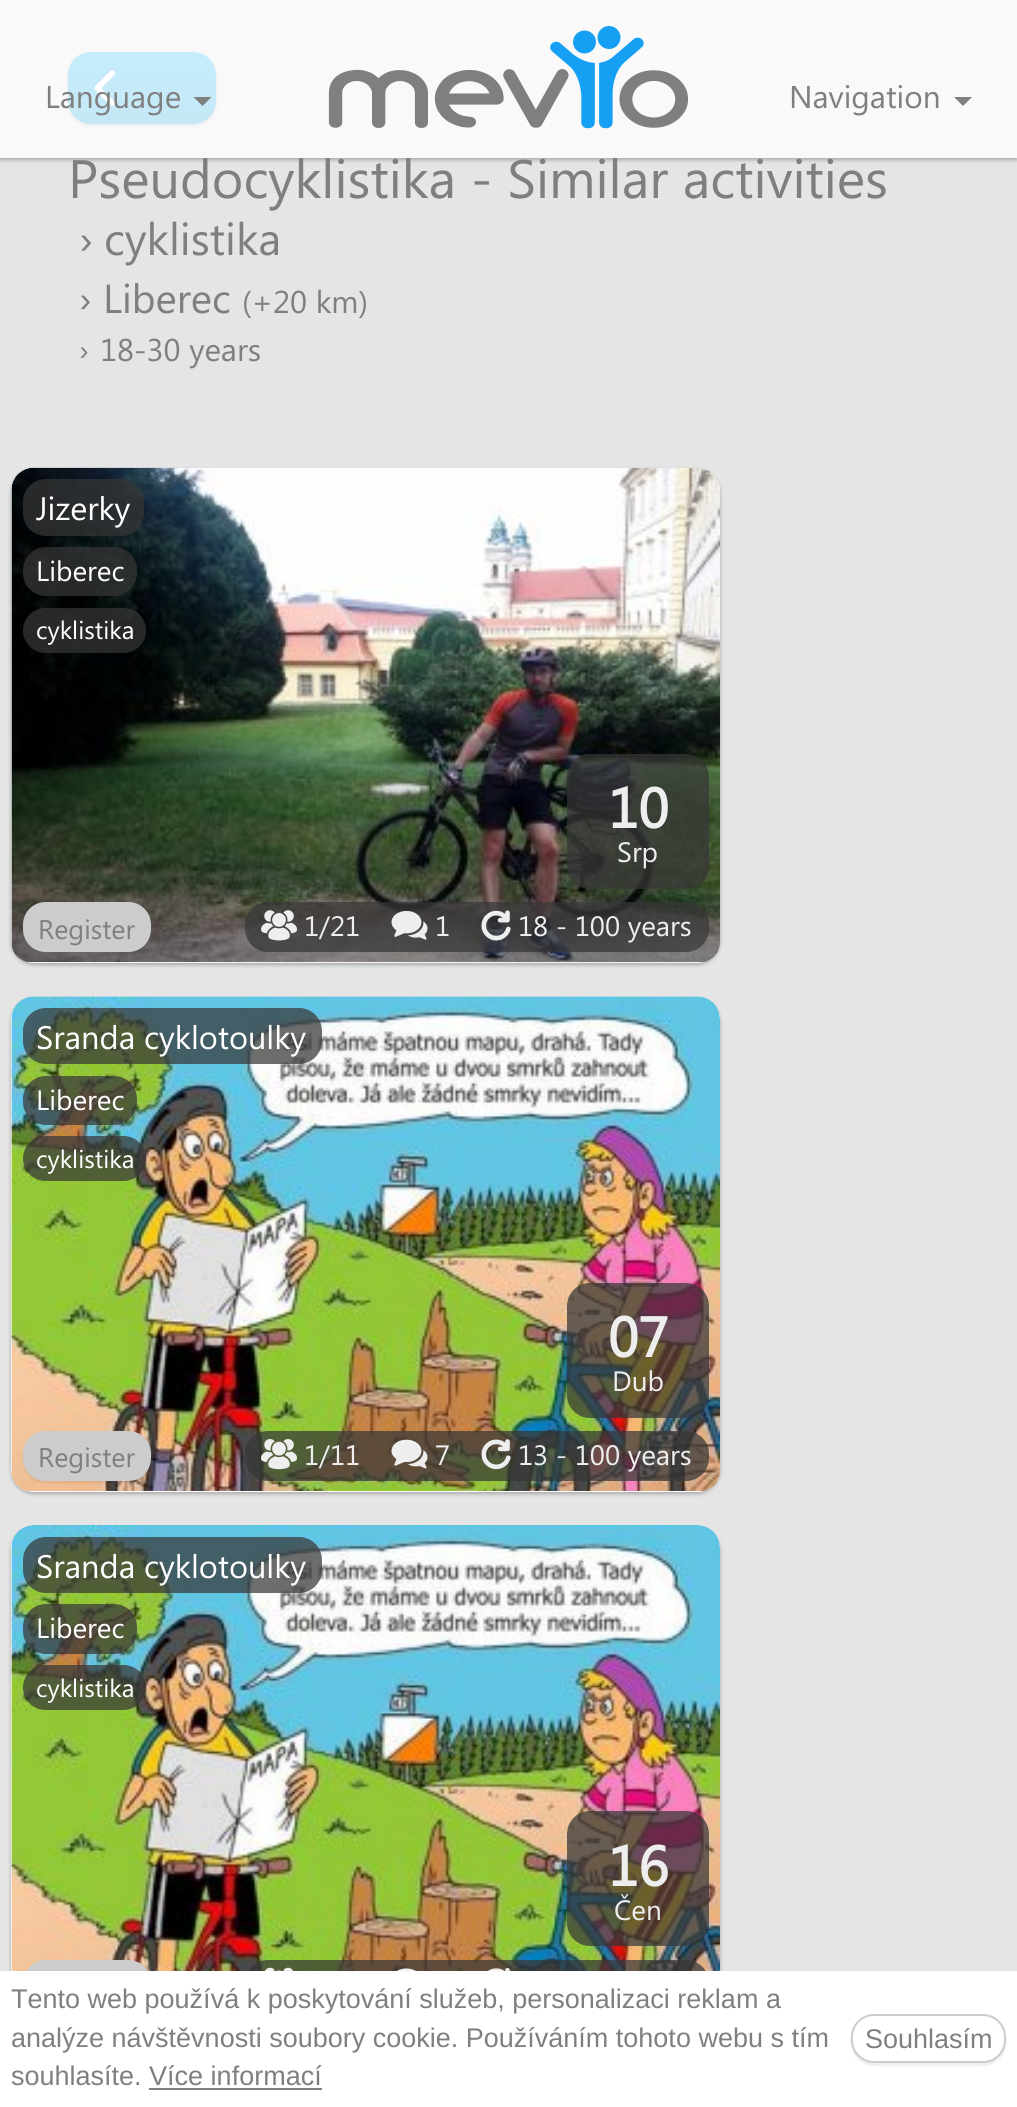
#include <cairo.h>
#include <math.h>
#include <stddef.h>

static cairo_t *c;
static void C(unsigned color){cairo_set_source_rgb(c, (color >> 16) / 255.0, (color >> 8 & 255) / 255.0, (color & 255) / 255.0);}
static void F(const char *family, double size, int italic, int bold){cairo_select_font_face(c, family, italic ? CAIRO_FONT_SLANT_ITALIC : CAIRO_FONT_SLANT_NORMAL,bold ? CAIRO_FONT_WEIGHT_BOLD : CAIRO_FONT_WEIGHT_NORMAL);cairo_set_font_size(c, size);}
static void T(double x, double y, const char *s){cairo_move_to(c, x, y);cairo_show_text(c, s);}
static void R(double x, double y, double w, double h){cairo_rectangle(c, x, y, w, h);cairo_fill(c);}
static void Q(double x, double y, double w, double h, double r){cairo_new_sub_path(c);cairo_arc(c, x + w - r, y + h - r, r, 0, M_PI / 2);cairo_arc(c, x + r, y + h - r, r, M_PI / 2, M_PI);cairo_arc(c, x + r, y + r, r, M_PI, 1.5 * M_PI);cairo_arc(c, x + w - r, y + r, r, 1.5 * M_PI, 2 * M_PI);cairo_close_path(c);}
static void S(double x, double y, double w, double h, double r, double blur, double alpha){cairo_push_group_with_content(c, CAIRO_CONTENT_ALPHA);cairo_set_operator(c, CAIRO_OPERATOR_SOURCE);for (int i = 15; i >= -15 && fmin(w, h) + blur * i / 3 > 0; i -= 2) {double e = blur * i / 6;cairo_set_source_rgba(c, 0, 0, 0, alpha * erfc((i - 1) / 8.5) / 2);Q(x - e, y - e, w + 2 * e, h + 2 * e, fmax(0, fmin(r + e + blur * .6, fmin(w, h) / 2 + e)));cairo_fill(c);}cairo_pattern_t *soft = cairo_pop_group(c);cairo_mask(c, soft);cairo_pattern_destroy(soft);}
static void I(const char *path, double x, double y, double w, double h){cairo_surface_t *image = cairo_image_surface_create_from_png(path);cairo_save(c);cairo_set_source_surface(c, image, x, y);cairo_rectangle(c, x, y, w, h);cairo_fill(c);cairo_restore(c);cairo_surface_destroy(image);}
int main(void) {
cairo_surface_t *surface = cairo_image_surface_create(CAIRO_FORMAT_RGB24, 1017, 2107);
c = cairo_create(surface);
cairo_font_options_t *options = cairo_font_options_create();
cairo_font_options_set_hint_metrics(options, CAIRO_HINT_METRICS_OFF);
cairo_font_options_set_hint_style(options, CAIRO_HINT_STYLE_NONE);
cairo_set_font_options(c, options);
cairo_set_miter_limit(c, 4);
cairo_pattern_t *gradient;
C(0xe5e5e5);
cairo_paint(c);
C(0x000000);
S(68,54,148,72,23,2,.27);
gradient = cairo_pattern_create_linear(142,52,142,124);
cairo_pattern_add_color_stop_rgba(gradient,0,0,0.667,0.918,1);
cairo_pattern_add_color_stop_rgba(gradient,.33,0,0.667,0.918,1);
cairo_pattern_add_color_stop_rgba(gradient,1,0,0.596,0.843,1);
cairo_set_source(c,gradient);
cairo_pattern_destroy(gradient);
Q(68,52,148,72,23);
cairo_fill(c);
I("2.png",94,70,22,37);
cairo_save(c);
cairo_set_fill_rule(c,CAIRO_FILL_RULE_EVEN_ODD);
cairo_new_path(c);
cairo_move_to(c,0,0);
cairo_line_to(c,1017,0);
cairo_line_to(c,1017,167);
cairo_line_to(c,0,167);
cairo_close_path(c);
cairo_move_to(c,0,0);
cairo_line_to(c,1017,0);
cairo_line_to(c,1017,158);
cairo_line_to(c,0,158);
cairo_close_path(c);
cairo_clip(c);
C(0x000000);
S(0,2,1017,158,0,2,.27);
cairo_restore(c);
cairo_set_source_rgba(c,1,1,1,0.77);
R(0,0,1017,158);
F("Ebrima",31.5,0,0);
C(0x7f7f7f);
T(45,108,"Language");
cairo_new_path(c);
cairo_move_to(c,193.5,97);
cairo_line_to(c,211.5,97);
cairo_line_to(c,202.5,106);
cairo_close_path(c);
cairo_fill(c);
I("1.png",328,26,361,103);
T(789,108,"Navigation");
cairo_new_path(c);
cairo_move_to(c,954,97);
cairo_line_to(c,972,97);
cairo_line_to(c,963,106);
cairo_close_path(c);
cairo_fill(c);
F("Ebrima",54,0,0);
T(68,198,"Pseudocyklistika - Similar activities");
F("Ebrima",45,0,0);
T(79,255,"›");
T(104,255,"cyklistika");
F("Ebrima",40.5,0,0);
T(79,313,"› Liberec");
F("Ebrima",31.5,0,0);
T(242,313,"(+20 km)");
T(79,361,"›");
T(100,361,"18-30 years");
C(0x000000);
S(11,470,709,495,23,2,.27);
C(0xffffff);
Q(11,468,709,495,23);
cairo_fill(c);
I("3.png",11,467,709,496);
cairo_set_source_rgba(c,0.216,0.216,0.216,0.72);
Q(23,479,121,57,23);
cairo_fill(c);
F("Ebrima",32.5,0,0);
C(0xffffff);
T(36,520,"Jizerky");
cairo_set_source_rgba(c,0.216,0.216,0.216,0.72);
Q(23,547,114,49,23);
cairo_fill(c);
F("Ebrima",28,0,0);
C(0xffffff);
T(36,581,"Liberec");
cairo_set_source_rgba(c,0.216,0.216,0.216,0.72);
Q(23,608,123,45,22.5);
cairo_fill(c);
F("Ebrima",25,0,0);
C(0xffffff);
T(36,639,"cyklistika");
cairo_set_source_rgba(c,0.216,0.216,0.216,0.72);
Q(567,754,142,135,23);
cairo_fill(c);
F("Ebrima",56,0,1);
C(0xeeeeee);
T(608,828,"10");
F("Ebrima",28,0,0);
T(617,862,"Srp");
C(0xcccccc);
cairo_new_path(c);
cairo_move_to(c,46,902);
cairo_line_to(c,128,902);
cairo_curve_to(c,141,902,151,912,151,925);
cairo_line_to(c,151,929);
cairo_curve_to(c,151,942,141,952,128,952);
cairo_line_to(c,46,952);
cairo_curve_to(c,33,952,23,942,23,929);
cairo_line_to(c,23,925);
cairo_curve_to(c,23,912,33,902,46,902);
cairo_close_path(c);
cairo_fill(c);
F("Ebrima",27,0,0);
C(0x7f7f7f);
T(38,939,"Register");
cairo_set_source_rgba(c,0.216,0.216,0.216,0.72);
Q(245,902,464,50,23);
cairo_fill(c);
I("4.png",261,910,36,31);
F("Ebrima",28,0,0);
C(0xeeeeee);
T(304,936,"1/21");
I("5.png",391,911,37,29);
T(435,936,"1");
I("6.png",481,910,30,31);
T(518,936,"18 - 100 years");
C(0x000000);
S(11,999,709,495,23,2,.27);
C(0xffffff);
Q(11,997,709,495,23);
cairo_fill(c);
I("7.png",11,996,709,495);
cairo_set_source_rgba(c,0.216,0.216,0.216,0.72);
Q(23,1008,299,56,23);
cairo_fill(c);
F("Ebrima",32.5,0,0);
C(0xffffff);
T(36,1049,"Sranda cyklotoulky");
cairo_set_source_rgba(c,0.216,0.216,0.216,0.72);
Q(23,1076,114,49,23);
cairo_fill(c);
F("Ebrima",28,0,0);
C(0xffffff);
T(36,1110,"Liberec");
cairo_set_source_rgba(c,0.216,0.216,0.216,0.72);
Q(23,1136,123,45,22.5);
cairo_fill(c);
F("Ebrima",25,0,0);
C(0xffffff);
T(36,1168,"cyklistika");
cairo_set_source_rgba(c,0.216,0.216,0.216,0.72);
Q(567,1283,142,135,23);
cairo_fill(c);
F("Ebrima",56,0,1);
C(0xeeeeee);
T(608,1357,"07");
F("Ebrima",28,0,0);
T(612,1391,"Dub");
C(0x000000);
S(23,1433,128,50,23,1,.07);
C(0xcccccc);
cairo_new_path(c);
cairo_move_to(c,46,1431);
cairo_line_to(c,128,1431);
cairo_curve_to(c,141,1431,151,1441,151,1454);
cairo_line_to(c,151,1458);
cairo_curve_to(c,151,1471,141,1481,128,1481);
cairo_line_to(c,46,1481);
cairo_curve_to(c,33,1481,23,1471,23,1458);
cairo_line_to(c,23,1454);
cairo_curve_to(c,23,1441,33,1431,46,1431);
cairo_close_path(c);
cairo_fill(c);
F("Ebrima",27,0,0);
C(0x7f7f7f);
T(38,1467,"Register");
cairo_set_source_rgba(c,0.216,0.216,0.216,0.72);
Q(245,1431,464,50,23);
cairo_fill(c);
I("8.png",261,1439,36,31);
F("Ebrima",28,0,0);
C(0xeeeeee);
T(304,1465,"1/11");
I("9.png",391,1439,37,30);
T(435,1465,"7");
I("10.png",481,1439,30,31);
T(518,1465,"13 - 100 years");
C(0x000000);
S(11,1528,709,495,23,2,.27);
C(0xffffff);
Q(11,1526,709,495,23);
cairo_fill(c);
I("11.png",11,1525,709,446);
cairo_set_source_rgba(c,0.216,0.216,0.216,0.72);
Q(23,1537,299,56,23);
cairo_fill(c);
F("Ebrima",32.5,0,0);
C(0xffffff);
T(36,1578,"Sranda cyklotoulky");
cairo_set_source_rgba(c,0.216,0.216,0.216,0.72);
Q(23,1604,114,50,23);
cairo_fill(c);
F("Ebrima",28,0,0);
C(0xffffff);
T(36,1638,"Liberec");
cairo_set_source_rgba(c,0.216,0.216,0.216,0.72);
Q(23,1665,123,45,22.5);
cairo_fill(c);
F("Ebrima",25,0,0);
C(0xffffff);
T(36,1697,"cyklistika");
cairo_set_source_rgba(c,0.216,0.216,0.216,0.72);
Q(567,1811,142,135,23);
cairo_fill(c);
F("Ebrima",56,0,1);
C(0xeeeeee);
T(608,1886,"16");
F("Ebrima",28,0,0);
T(614,1920,"Čen");
C(0xcccccc);
cairo_new_path(c);
cairo_move_to(c,46,1960);
cairo_line_to(c,128,1960);
cairo_curve_to(c,141,1960,151,1970,151,1983);
cairo_line_to(c,151,1986);
cairo_curve_to(c,151,1999,141,2009,128,2009);
cairo_line_to(c,46,2009);
cairo_curve_to(c,33,2009,23,1999,23,1986);
cairo_line_to(c,23,1983);
cairo_curve_to(c,23,1970,33,1960,46,1960);
cairo_close_path(c);
cairo_fill(c);
cairo_set_source_rgba(c,0.216,0.216,0.216,0.72);
Q(245,1960,464,49,23);
cairo_fill(c);
I("12.png",264,1967,30,4);
I("13.png",397,1968,19,3);
I("14.png",488,1968,22,3);
C(0xffffff);
R(0,1971,1017,136);
F("Liberation Sans",27,0,0);
C(0x7f7f7f);
T(11,2008,"Tento web používá k poskytování služeb, personalizaci reklam a");
T(11,2047,"analýze návštěvnosti soubory cookie. Používáním tohoto webu s tím");
T(11,2085,"souhlasíte. Více informací");
C(0x808080);
R(149,2088,173,2);
C(0x000000);
S(851,2016,155,50,23,1,.07);
C(0xffffff);
Q(852,2015,153,47,22);
cairo_fill_preserve(c);
C(0xcccccc);
cairo_stroke(c);
C(0x7f7f7f);
T(865,2048,"Souhlasím");
cairo_surface_write_to_png(surface, "o.png");
cairo_font_options_destroy(options);
cairo_destroy(c);
cairo_surface_destroy(surface);
return 0;
}
